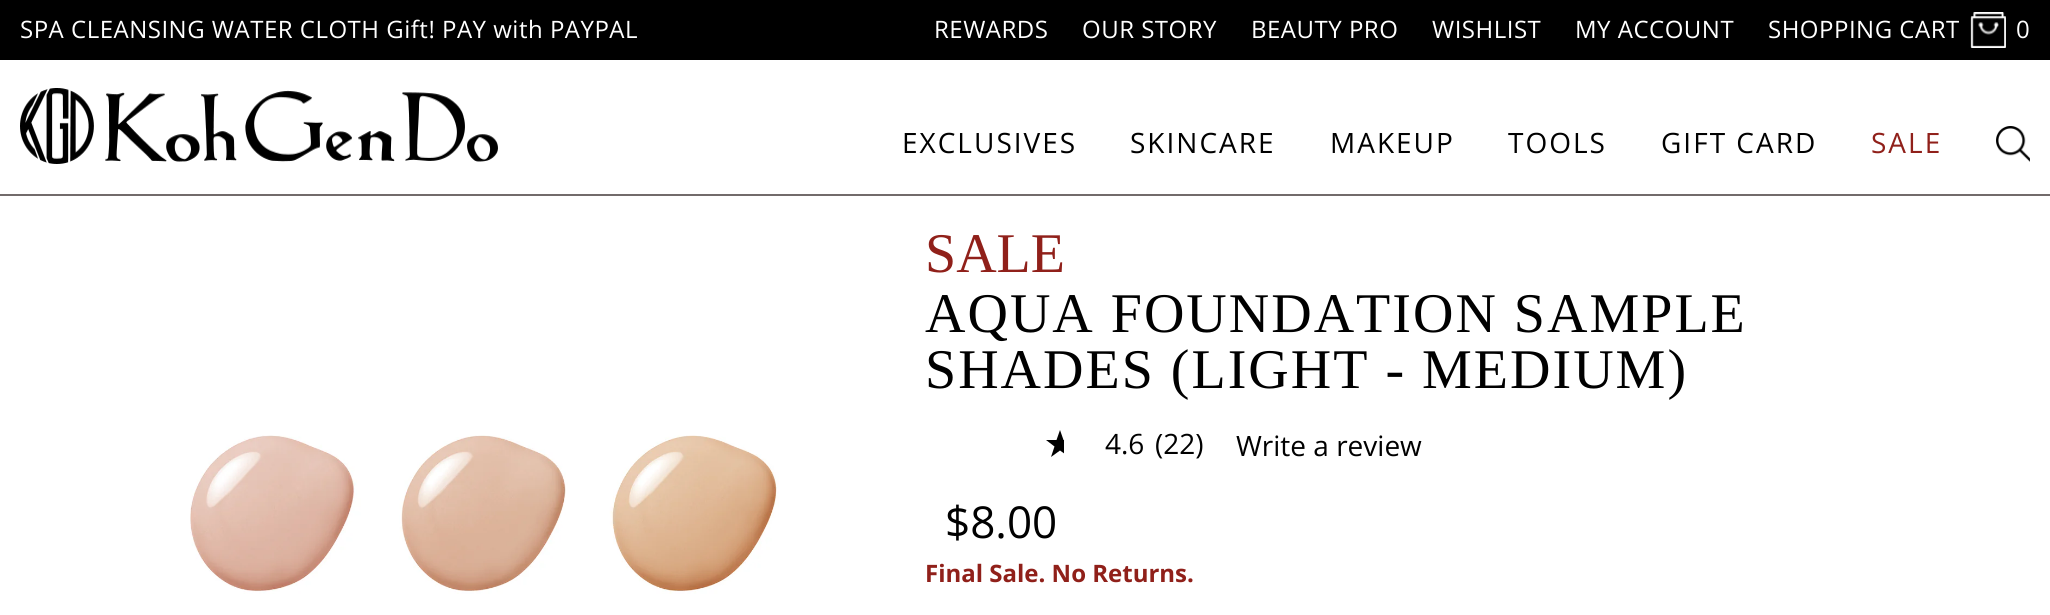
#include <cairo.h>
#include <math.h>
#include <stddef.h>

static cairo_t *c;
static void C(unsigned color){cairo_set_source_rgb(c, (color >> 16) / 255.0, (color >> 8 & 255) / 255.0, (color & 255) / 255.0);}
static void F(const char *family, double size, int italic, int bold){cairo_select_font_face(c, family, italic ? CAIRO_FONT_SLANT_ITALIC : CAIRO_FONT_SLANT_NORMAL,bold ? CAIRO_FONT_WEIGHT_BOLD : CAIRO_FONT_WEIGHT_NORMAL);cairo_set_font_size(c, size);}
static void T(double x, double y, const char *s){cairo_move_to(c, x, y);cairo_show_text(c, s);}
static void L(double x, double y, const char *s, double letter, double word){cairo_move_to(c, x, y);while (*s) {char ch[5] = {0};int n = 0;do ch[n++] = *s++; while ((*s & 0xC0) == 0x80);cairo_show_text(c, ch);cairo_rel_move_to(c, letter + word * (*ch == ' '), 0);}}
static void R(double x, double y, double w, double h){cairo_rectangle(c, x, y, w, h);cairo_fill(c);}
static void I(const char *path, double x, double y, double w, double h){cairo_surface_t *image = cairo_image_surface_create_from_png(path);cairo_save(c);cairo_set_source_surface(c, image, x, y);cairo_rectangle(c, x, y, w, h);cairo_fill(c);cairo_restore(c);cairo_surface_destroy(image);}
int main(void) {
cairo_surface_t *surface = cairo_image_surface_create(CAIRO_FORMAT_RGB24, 2050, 615);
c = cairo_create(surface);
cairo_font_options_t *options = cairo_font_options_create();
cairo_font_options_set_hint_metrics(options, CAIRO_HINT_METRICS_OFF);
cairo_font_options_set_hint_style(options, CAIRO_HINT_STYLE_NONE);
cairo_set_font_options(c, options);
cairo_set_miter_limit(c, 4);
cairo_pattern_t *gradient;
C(0xffffff);
cairo_paint(c);
C(0x000000);
R(0,0,2050,60);
F("Open Sans",24,0,0);
C(0xffffff);
L(20,38,"SPA CLEANSING WATER CLOTH Gift! PAY with PAYPAL",.5,0);
L(934,38,"REWARDS",.5,0);
L(1082,38,"OUR STORY",.5,0);
L(1251,38,"BEAUTY PRO",.5,0);
L(1432,38,"WISHLIST",.5,0);
L(1575,38,"MY ACCOUNT",.5,0);
L(1768,38,"SHOPPING CART",.5,0);
I("1.png",1970,12,36,36);
L(2016,38,"0",.5,0);
C(0x726b6b);
R(0,194,2050,2);
I("2.png",20,88,478,76);
F("Open Sans",28,0,0);
C(0x000000);
L(902,153,"EXCLUSIVES",2,0);
L(1130,153,"SKINCARE",2,0);
L(1330,153,"MAKEUP",2,0);
L(1508,153,"TOOLS",2,0);
L(1661,153,"GIFT CARD",2,0);
C(0x90201a);
L(1871,153,"SALE",2,0);
I("3.png",1996,126,34,36);
I("4.png",190,435,589,159);
F("Liberation Serif",56,0,0);
T(925,272,"SALE");
C(0x000000);
L(925,332,"AQUA FOUNDATION SAMPLE",2,0);
L(925,388,"SHADES (LIGHT - MEDIUM)",2,0);
gradient = cairo_pattern_create_linear(1064,430,1074,430);
cairo_pattern_add_color_stop_rgba(gradient,0,0,0,0,1);
cairo_pattern_add_color_stop_rgba(gradient,.01,1,1,1,1);
cairo_set_source(c,gradient);
cairo_pattern_destroy(gradient);
cairo_new_path(c);
cairo_move_to(c,1074,440);
cairo_line_to(c,1063.5,440);
cairo_line_to(c,1060,430);
cairo_line_to(c,1056.5,440);
cairo_line_to(c,1046,440);
cairo_line_to(c,1054.5,446.5);
cairo_line_to(c,1051,457);
cairo_line_to(c,1060,450.5);
cairo_line_to(c,1069,457);
cairo_line_to(c,1065.5,446.5);
cairo_close_path(c);
cairo_fill(c);
F("Open Sans",28,0,0);
C(0x000000);
T(1105,454,"4.6");
T(1155,454,"(22)");
T(1236,456,"Write a review");
F("Open Sans",44,0,0);
T(945,538,"$8.00");
F("Open Sans",24,0,1);
C(0x90201a);
T(925,582,"Final Sale. No Returns.");
cairo_surface_write_to_png(surface, "o.png");
cairo_font_options_destroy(options);
cairo_destroy(c);
cairo_surface_destroy(surface);
return 0;
}
